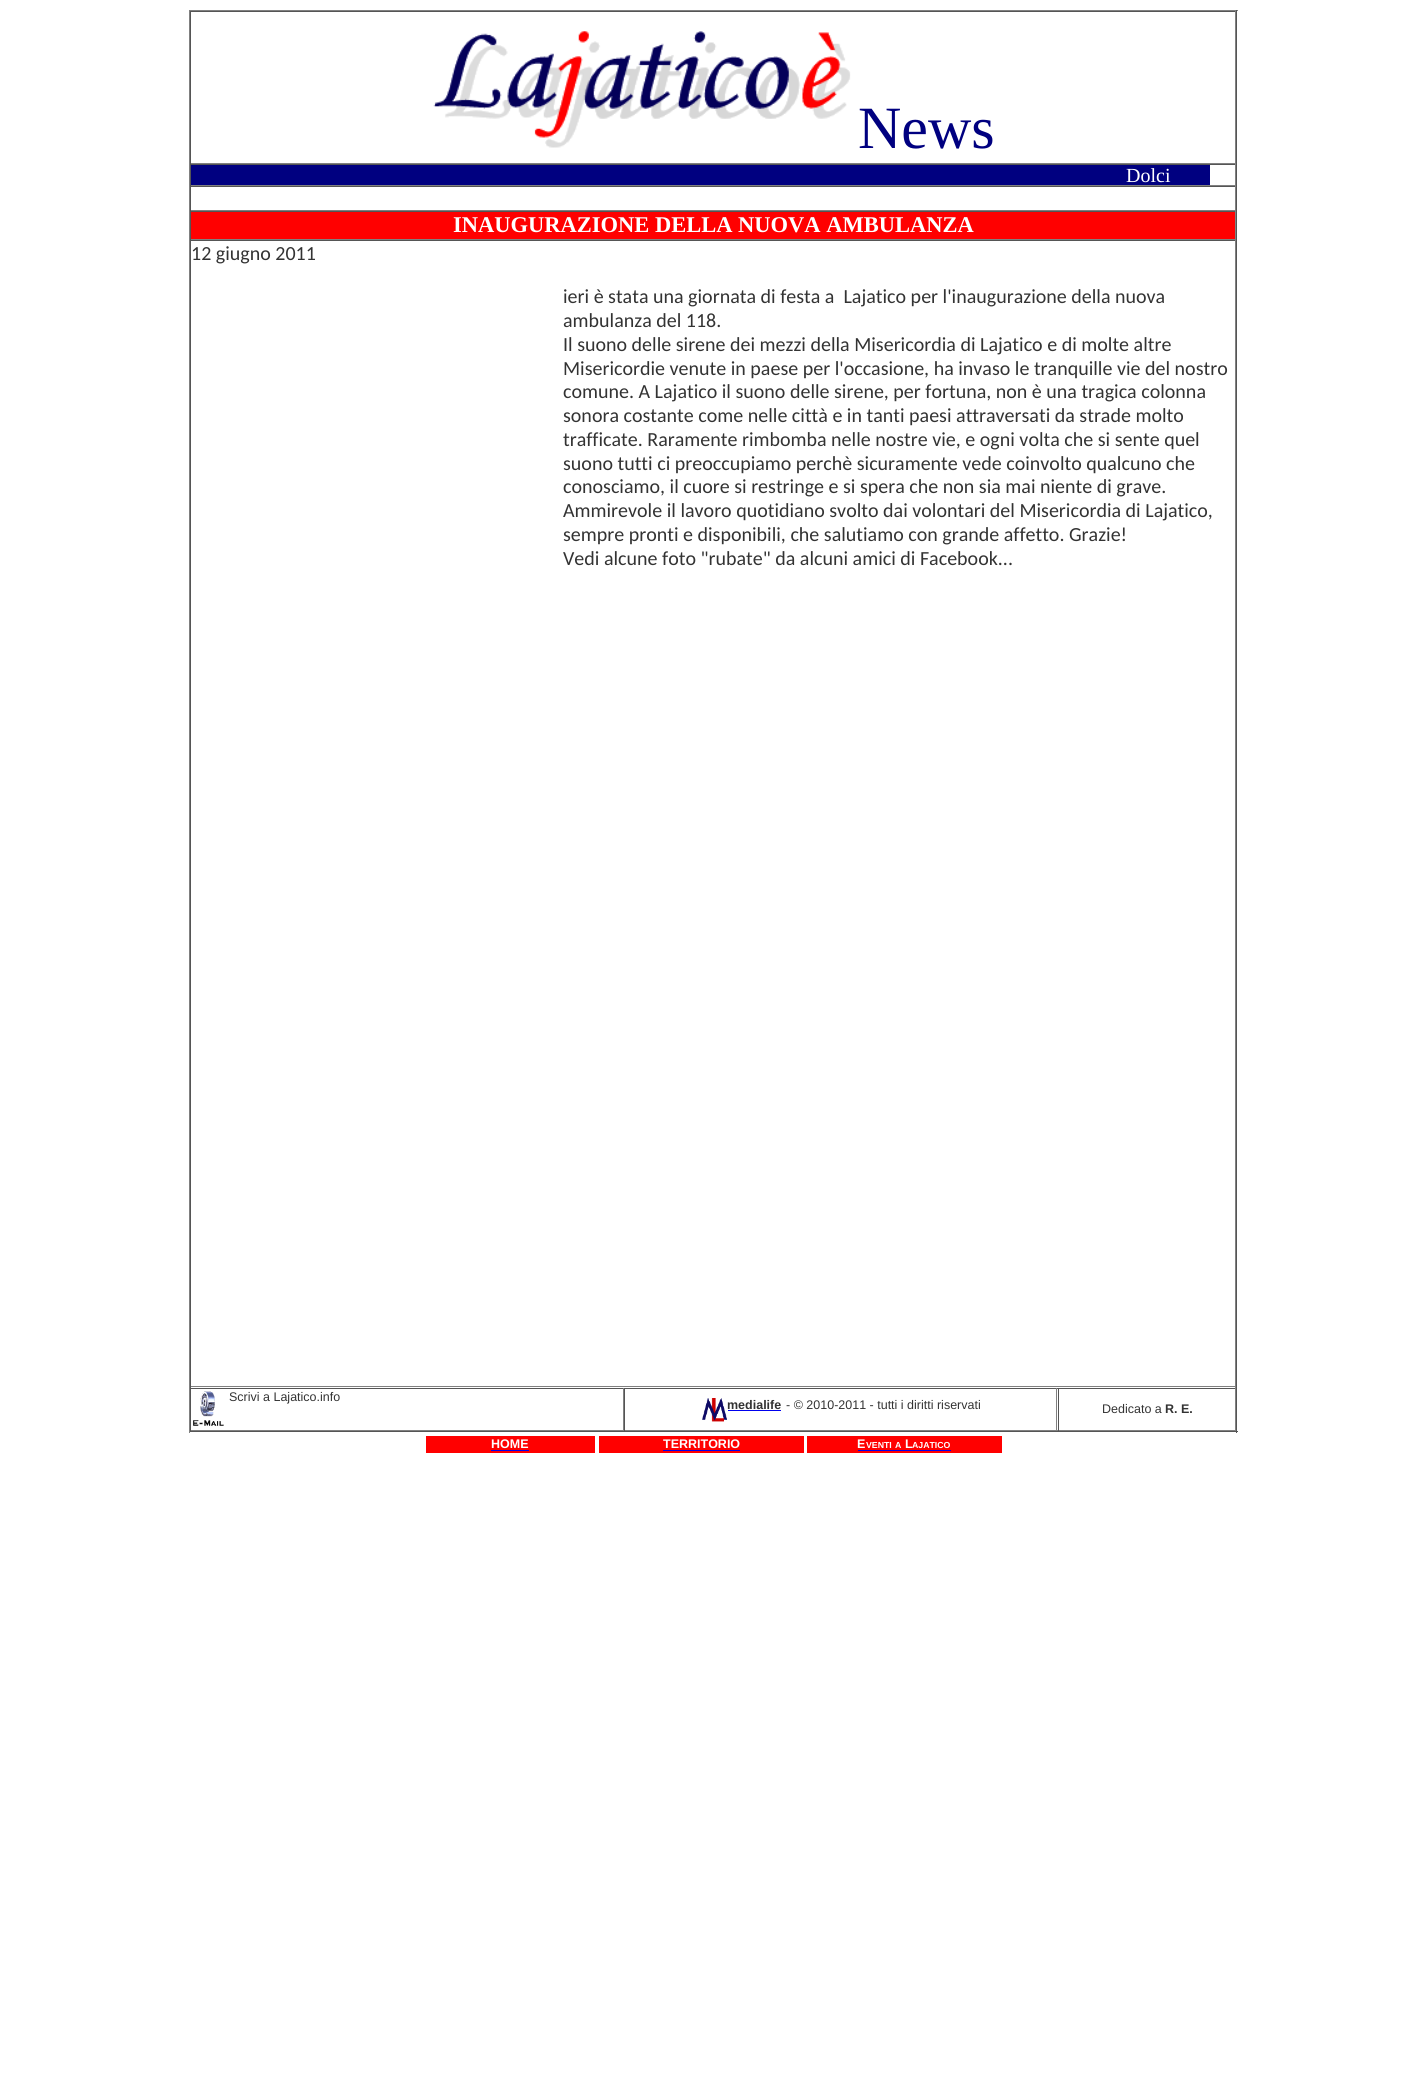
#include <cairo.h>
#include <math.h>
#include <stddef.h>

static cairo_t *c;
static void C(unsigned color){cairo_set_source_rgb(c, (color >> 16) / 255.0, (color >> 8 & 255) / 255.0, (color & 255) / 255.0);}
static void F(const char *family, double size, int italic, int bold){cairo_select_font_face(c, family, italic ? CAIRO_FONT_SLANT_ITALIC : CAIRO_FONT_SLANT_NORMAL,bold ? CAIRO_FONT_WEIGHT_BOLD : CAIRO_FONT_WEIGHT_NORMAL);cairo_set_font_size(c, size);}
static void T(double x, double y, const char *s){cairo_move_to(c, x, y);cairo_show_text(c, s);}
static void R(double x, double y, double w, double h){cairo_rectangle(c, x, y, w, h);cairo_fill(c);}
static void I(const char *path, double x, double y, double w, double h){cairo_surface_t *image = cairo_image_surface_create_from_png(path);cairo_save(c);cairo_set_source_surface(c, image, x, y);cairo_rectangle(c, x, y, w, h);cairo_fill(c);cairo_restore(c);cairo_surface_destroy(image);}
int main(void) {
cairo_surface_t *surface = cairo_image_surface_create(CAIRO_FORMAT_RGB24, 1426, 2080);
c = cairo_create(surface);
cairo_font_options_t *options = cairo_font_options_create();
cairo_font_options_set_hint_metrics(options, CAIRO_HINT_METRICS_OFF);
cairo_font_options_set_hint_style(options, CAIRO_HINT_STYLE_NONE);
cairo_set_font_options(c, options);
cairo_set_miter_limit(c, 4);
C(0xffffff);
cairo_paint(c);
C(0x808080);
R(189,10,1049,1);
C(0x555555);
R(1236,10,1,1423);
R(189,1431,1049,1);
C(0x808080);
R(189,10,1,1423);
C(0x555555);
R(190,11,1046,1);
C(0x808080);
R(1235,11,1,153);
R(190,163,1046,1);
C(0x555555);
R(190,11,1,153);
I("1.png",433,31,418,117);
F("Liberation Serif",60,0,0);
C(0x000080);
T(858,148,"News");
C(0x555555);
R(190,164,1046,1);
C(0x808080);
R(1235,164,1,22);
R(190,185,1046,1);
C(0x555555);
R(190,164,1,22);
C(0x000080);
R(191,165,1019,20);
F("Liberation Serif",20,0,0);
C(0xffffff);
T(1126,182,"Dolci");
C(0x555555);
R(190,186,1046,1);
C(0x808080);
R(1235,186,1,25);
R(190,210,1046,1);
C(0x555555);
R(190,186,1,25);
C(0xff0000);
R(191,212,1044,27);
C(0x555555);
R(190,211,1046,1);
C(0x808080);
R(1235,211,1,29);
R(190,239,1046,1);
C(0x555555);
R(190,211,1,29);
F("Liberation Serif",22.5,0,1);
C(0xffffff);
T(453,232,"INAUGURAZIONE DELLA NUOVA AMBULANZA");
C(0x555555);
R(190,240,1046,1);
C(0x808080);
R(1235,240,1,1148);
R(190,1386,1046,1);
C(0x555555);
R(190,240,1,1148);
F("Carlito",20,0,0);
C(0x333333);
T(191,260,"12 giugno 2011");
T(563,303,"ieri è stata una giornata di festa a  Lajatico per l'inaugurazione della nuova");
T(563,327,"ambulanza del 118.");
T(563,351,"Il suono delle sirene dei mezzi della Misericordia di Lajatico e di molte altre");
T(563,375,"Misericordie venute in paese per l'occasione, ha invaso le tranquille vie del nostro");
T(563,398,"comune. A Lajatico il suono delle sirene, per fortuna, non è una tragica colonna");
T(563,422,"sonora costante come nelle città e in tanti paesi attraversati da strade molto");
T(563,446,"trafficate. Raramente rimbomba nelle nostre vie, e ogni volta che si sente quel");
T(563,470,"suono tutti ci preoccupiamo perchè sicuramente vede coinvolto qualcuno che");
T(563,493,"conosciamo, il cuore si restringe e si spera che non sia mai niente di grave.");
T(563,517,"Ammirevole il lavoro quotidiano svolto dai volontari del Misericordia di Lajatico,");
T(563,541,"sempre pronti e disponibili, che salutiamo con grande affetto. Grazie!");
T(563,565,"Vedi alcune foto \"rubate\" da alcuni amici di Facebook...");
C(0x555555);
R(190,1388,1046,1);
C(0x808080);
R(623,1388,1,43);
R(190,1430,434,1);
C(0x555555);
R(190,1388,1,43);
I("2.png",193,1391,31,35);
F("Liberation Sans",12.5,0,0);
C(0x333333);
T(229,1401,"Scrivi a Lajatico.info");
C(0x808080);
R(1056,1388,1,43);
R(624,1430,434,1);
C(0x555555);
R(624,1388,1,43);
I("3.png",702,1398,25,24);
F("Liberation Sans",12.5,0,1);
C(0x333333);
T(727,1409,"medialife");
C(0x0000ee);
R(728,1410,53,1);
F("Liberation Sans",12.5,0,0);
C(0x333333);
T(786,1409,"- © 2010-2011 - tutti i diritti riservati");
C(0x808080);
R(1235,1388,1,43);
R(1058,1430,178,1);
C(0x555555);
R(1058,1388,1,43);
C(0x333333);
T(1102,1413,"Dedicato a");
F("Liberation Sans",12.5,0,1);
T(1165,1413,"R. E.");
C(0xff0000);
R(426,1436,169,17);
C(0xffffff);
T(491,1448,"HOME");
C(0x0000ee);
R(491,1450,38,1);
C(0xff0000);
R(599,1436,205,17);
C(0xffffff);
T(663,1448,"TERRITORIO");
C(0x0000ee);
R(663,1450,77,1);
C(0xff0000);
R(807,1436,195,17);
C(0xffffff);
T(857,1448,"E");
F("Liberation Sans",8.75,0,1);
T(866,1448,"VENTI");
C(0x0000ee);
R(858,1450,93,1);
C(0xffffff);
T(895,1448,"A");
F("Liberation Sans",12.5,0,1);
T(905,1448,"L");
F("Liberation Sans",8.75,0,1);
T(912,1448,"AJATICO");
cairo_surface_write_to_png(surface, "o.png");
cairo_font_options_destroy(options);
cairo_destroy(c);
cairo_surface_destroy(surface);
return 0;
}
